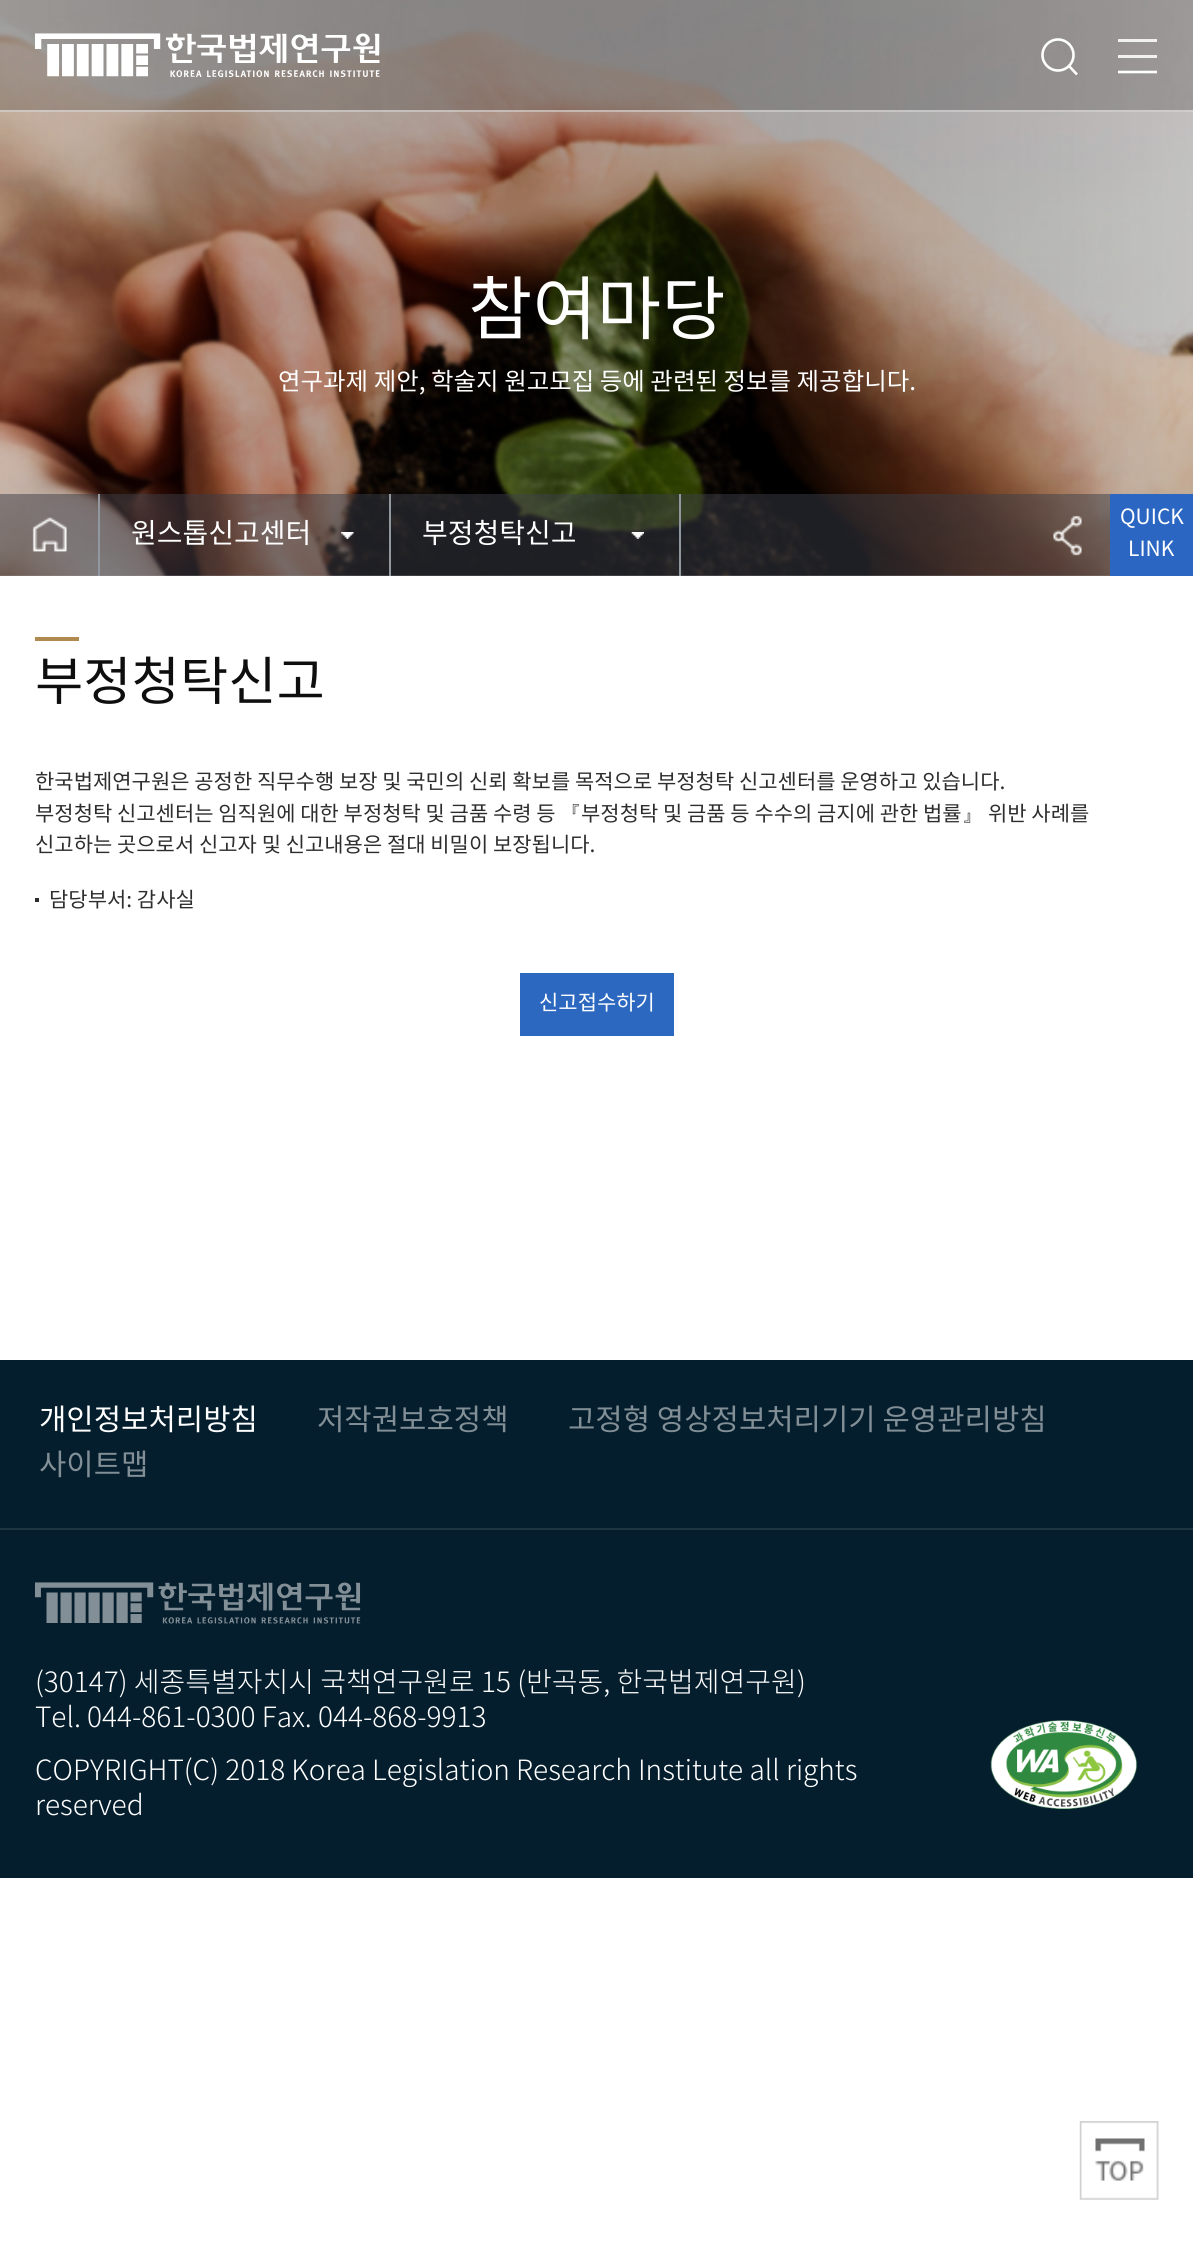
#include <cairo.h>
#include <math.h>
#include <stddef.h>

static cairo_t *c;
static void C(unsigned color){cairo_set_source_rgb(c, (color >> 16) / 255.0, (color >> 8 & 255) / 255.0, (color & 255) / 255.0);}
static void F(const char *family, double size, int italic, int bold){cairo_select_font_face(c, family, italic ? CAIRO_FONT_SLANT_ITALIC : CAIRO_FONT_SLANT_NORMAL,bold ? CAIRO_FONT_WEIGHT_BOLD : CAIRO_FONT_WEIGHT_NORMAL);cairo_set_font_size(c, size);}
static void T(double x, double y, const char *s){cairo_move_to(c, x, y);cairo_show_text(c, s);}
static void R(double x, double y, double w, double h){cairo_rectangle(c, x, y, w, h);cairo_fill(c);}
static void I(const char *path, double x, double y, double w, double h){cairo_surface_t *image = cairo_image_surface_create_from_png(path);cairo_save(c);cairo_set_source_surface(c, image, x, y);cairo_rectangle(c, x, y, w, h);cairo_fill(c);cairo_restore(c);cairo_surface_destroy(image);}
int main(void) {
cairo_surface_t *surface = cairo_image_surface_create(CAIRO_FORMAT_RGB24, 1193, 2251);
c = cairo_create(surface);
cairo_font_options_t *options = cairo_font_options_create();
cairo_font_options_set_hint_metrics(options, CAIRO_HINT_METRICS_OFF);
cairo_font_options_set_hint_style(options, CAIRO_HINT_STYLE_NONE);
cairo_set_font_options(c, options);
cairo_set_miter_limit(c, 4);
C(0xffffff);
cairo_paint(c);
I("2.png",0,0,1193,576);
cairo_set_source_rgba(c,0,0,0,0.2);
R(0,0,1193,112);
cairo_set_source_rgba(c,1,1,1,0.5);
R(0,110,1193,2);
I("1.png",35,33,345,44);
cairo_arc(c,1058,55,15.5,0,2 * M_PI);
C(0xffffff);
cairo_set_line_width(c,2.6);
cairo_stroke(c);
cairo_new_path(c);
cairo_move_to(c,1068.5,65.5);
cairo_line_to(c,1077,74.5);
cairo_stroke(c);
cairo_set_source_rgba(c,1,1,1,0.87);
R(1118,39,39,3);
R(1118,55,39,3);
cairo_new_path(c);
cairo_move_to(c,1118,72);
cairo_line_to(c,1157,72);
C(0xffffff);
cairo_stroke(c);
F("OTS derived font",70,0,0);
T(468,334,"참여마당");
F("OTS derived font",24.5,0,0);
T(278,390,"연구과제 제안, 학술지 원고모집 등에 관련된 정보를 제공합니다.");
cairo_set_source_rgba(c,0.227,0.243,0.286,0.5);
R(0,494,1110,82);
C(0x2b66c2);
R(1110,494,83,82);
F("OTS derived font",21,0,0);
C(0xffffff);
T(1120,524,"QUICK");
T(1128,556,"LINK");
I("3.png",32,517,35,35);
C(0x91989f);
R(98,494,2,82);
R(389,494,2,82);
F("OTS derived font",28,0,0);
C(0xffffff);
T(131,543,"원스톱신고센터");
I("4.png",341,532,13,7);
C(0x91989f);
R(679,494,2,82);
C(0xffffff);
T(422,543,"부정청탁신고");
I("5.png",631,532,13,7);
I("6.png",1053,515,29,41);
C(0xaf894e);
R(35,637,44,4);
F("OTS derived font",52.5,0,0);
C(0x0e0e0e);
T(35,700,"부정청탁신고");
F("OTS derived font",21,0,0);
C(0x2d2d2d);
T(35,789,"한국법제연구원은 공정한 직무수행 보장 및 국민의 신뢰 확보를 목적으로 부정청탁 신고센터를 운영하고 있습니다.");
T(35,821,"부정청탁 신고센터는 임직원에 대한 부정청탁 및 금품 수령 등");
F("WenQuanYi Zen Hei Medium",21,0,0);
T(560,821,"『");
F("OTS derived font",21,0,0);
T(581,821,"부정청탁 및 금품 등 수수의 금지에 관한 법률");
T(988,821,"위반 사례를");
F("WenQuanYi Zen Hei Medium",21,0,0);
T(962,821,"』");
F("OTS derived font",21,0,0);
T(35,852,"신고하는 곳으로서 신고자 및 신고내용은 절대 비밀이 보장됩니다.");
R(35,898,4,4);
T(49,907,"담당부서: 감사실");
C(0x2c68c0);
R(520,973,154,63);
C(0xffffff);
T(539,1010,"신고접수하기");
C(0x051e2d);
R(0,1360,1193,518);
C(0x1e3542);
R(0,1528,1193,2);
F("OTS derived font",29.75,0,0);
C(0xffffff);
T(39,1430,"개인정보처리방침");
C(0x828f96);
T(317,1430,"저작권보호정책");
T(568,1430,"고정형 영상정보처리기기 운영관리방침");
T(39,1475,"사이트맵");
I("7.png",35,1582,326,42);
F("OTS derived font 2",28,0,0);
C(0xffffff);
T(35,1692,"(30147) 세종특별자치시 국책연구원로 15 (반곡동, 한국법제연구원)");
T(35,1727,"Tel. 044-861-0300 Fax. 044-868-9913");
T(35,1780,"COPYRIGHT(C) 2018 Korea Legislation Research Institute all rights");
T(35,1815,"reserved");
I("8.png",990,1720,147,89);
I("9.png",1079,2121,80,79);
cairo_surface_write_to_png(surface, "o.png");
cairo_font_options_destroy(options);
cairo_destroy(c);
cairo_surface_destroy(surface);
return 0;
}
